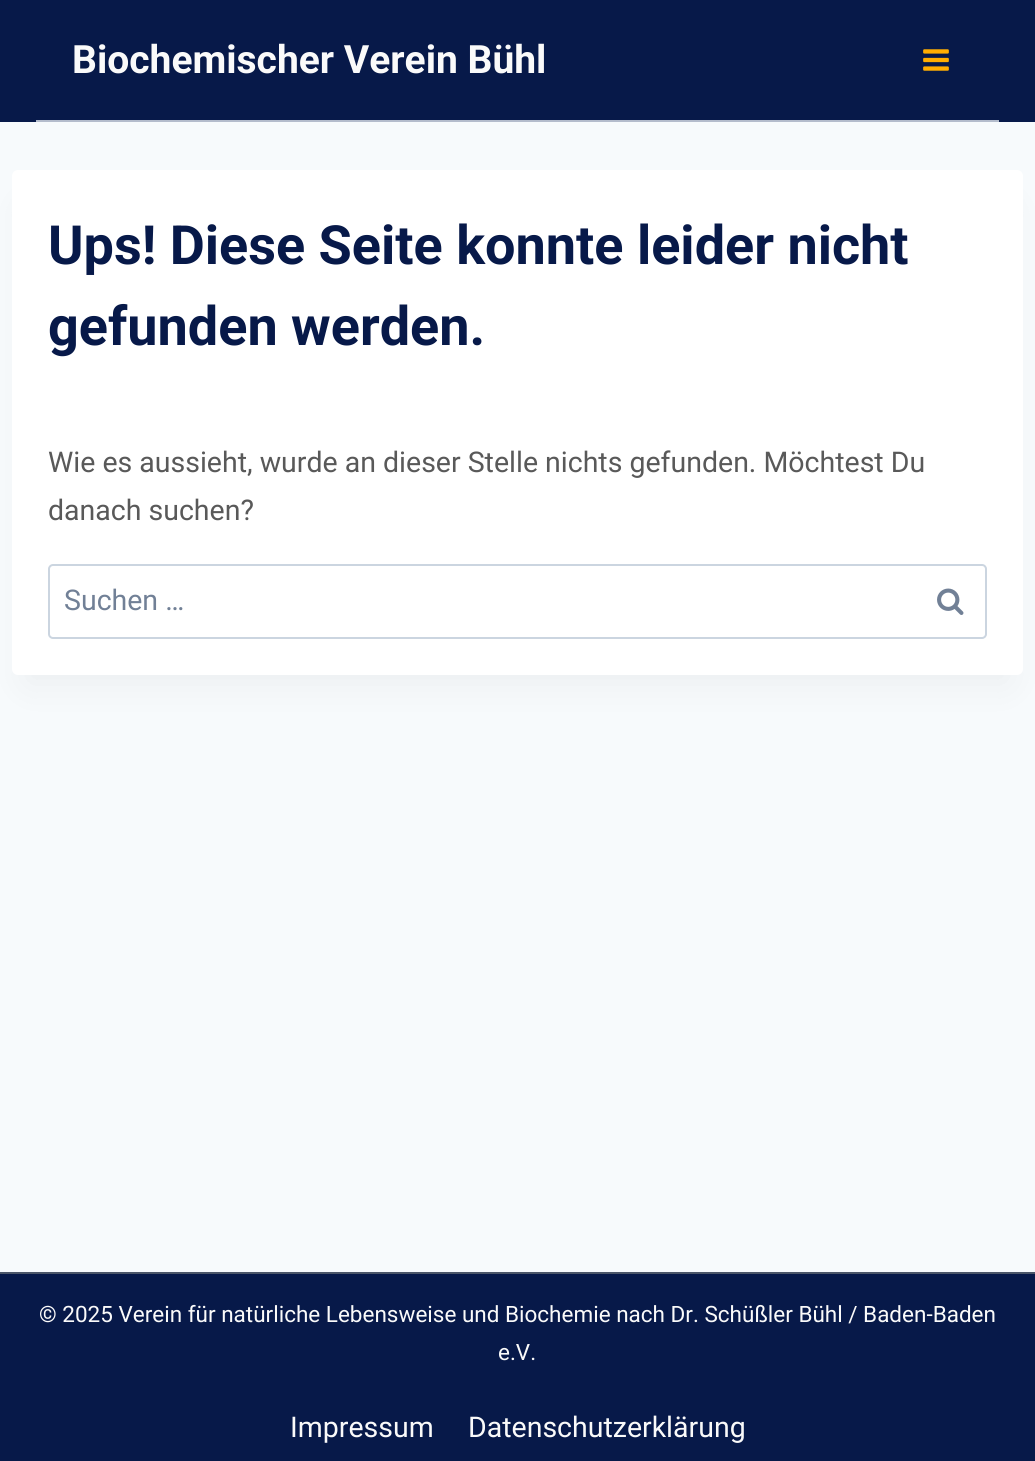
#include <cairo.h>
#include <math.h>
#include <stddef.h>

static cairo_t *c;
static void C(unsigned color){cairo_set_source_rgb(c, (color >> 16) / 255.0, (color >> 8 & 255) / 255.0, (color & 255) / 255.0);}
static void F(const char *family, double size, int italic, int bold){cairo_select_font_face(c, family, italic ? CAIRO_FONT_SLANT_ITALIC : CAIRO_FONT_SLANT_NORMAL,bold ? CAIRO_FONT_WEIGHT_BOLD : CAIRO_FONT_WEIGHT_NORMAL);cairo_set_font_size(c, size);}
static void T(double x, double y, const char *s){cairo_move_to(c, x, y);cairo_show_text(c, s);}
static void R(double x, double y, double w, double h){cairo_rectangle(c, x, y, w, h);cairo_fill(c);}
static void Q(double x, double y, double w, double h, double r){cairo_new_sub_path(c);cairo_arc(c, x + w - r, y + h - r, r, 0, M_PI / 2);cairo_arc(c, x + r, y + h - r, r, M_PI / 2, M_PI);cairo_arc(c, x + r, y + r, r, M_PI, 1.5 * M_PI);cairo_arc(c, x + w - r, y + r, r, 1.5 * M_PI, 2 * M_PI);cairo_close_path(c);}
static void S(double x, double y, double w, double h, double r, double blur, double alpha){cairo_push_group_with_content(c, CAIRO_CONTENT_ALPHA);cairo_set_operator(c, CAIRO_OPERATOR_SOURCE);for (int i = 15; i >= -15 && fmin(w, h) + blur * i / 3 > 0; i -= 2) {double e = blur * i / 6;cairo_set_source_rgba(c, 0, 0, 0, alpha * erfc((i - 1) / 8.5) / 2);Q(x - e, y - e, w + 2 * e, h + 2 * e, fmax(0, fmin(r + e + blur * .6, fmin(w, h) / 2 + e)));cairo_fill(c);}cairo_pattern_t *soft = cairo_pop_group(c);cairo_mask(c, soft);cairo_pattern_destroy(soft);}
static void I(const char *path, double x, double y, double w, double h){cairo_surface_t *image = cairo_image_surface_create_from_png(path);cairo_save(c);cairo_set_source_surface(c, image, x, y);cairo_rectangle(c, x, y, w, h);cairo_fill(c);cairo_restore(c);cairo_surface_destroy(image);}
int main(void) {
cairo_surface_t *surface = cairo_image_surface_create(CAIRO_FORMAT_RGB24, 1035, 1461);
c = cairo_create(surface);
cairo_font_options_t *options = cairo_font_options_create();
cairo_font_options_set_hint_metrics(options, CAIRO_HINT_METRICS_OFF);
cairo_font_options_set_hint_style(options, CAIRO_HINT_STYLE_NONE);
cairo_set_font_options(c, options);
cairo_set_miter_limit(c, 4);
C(0xf7fafc);
cairo_paint(c);
C(0x071949);
R(0,0,1035,122);
C(0xb4bccc);
R(36,120,963,2);
F("Roboto",39,0,1);
C(0xfafafa);
T(72,73,"Biochemischer Verein Bühl");
I("1.png",923,49,26,22);
C(0x000000);
S(27,207,981,476,0,19,.05);
C(0xffffff);
Q(12,170,1011,505,6);
cairo_fill(c);
F("Roboto",54,0,1);
C(0x071949);
T(48,264,"Ups! Diese Seite konnte leider nicht");
T(48,345,"gefunden werden.");
F("Roboto",28.5,0,0);
C(0x595959);
T(48,472,"Wie es aussieht, wurde an dieser Stelle nichts gefunden. Möchtest Du");
T(48,520,"danach suchen?");
Q(49,565,937,73,4);
C(0xcbd5e0);
cairo_stroke(c);
C(0x718096);
T(64,610,"Suchen …");
I("2.png",937,588,27,27);
C(0x071949);
R(0,1274,1035,187);
C(0x4a5568);
R(0,1272,1035,2);
F("Roboto",22.5,0,0);
C(0xfafafa);
T(39,1322,"© 2025 Verein für natürliche Lebensweise und Biochemie nach Dr. Schüßler Bühl / Baden-Baden");
T(498,1360,"e.V.");
F("Roboto",28.5,0,0);
T(290,1437,"Impressum");
T(468,1437,"Datenschutzerklärung");
cairo_surface_write_to_png(surface, "o.png");
cairo_font_options_destroy(options);
cairo_destroy(c);
cairo_surface_destroy(surface);
return 0;
}
